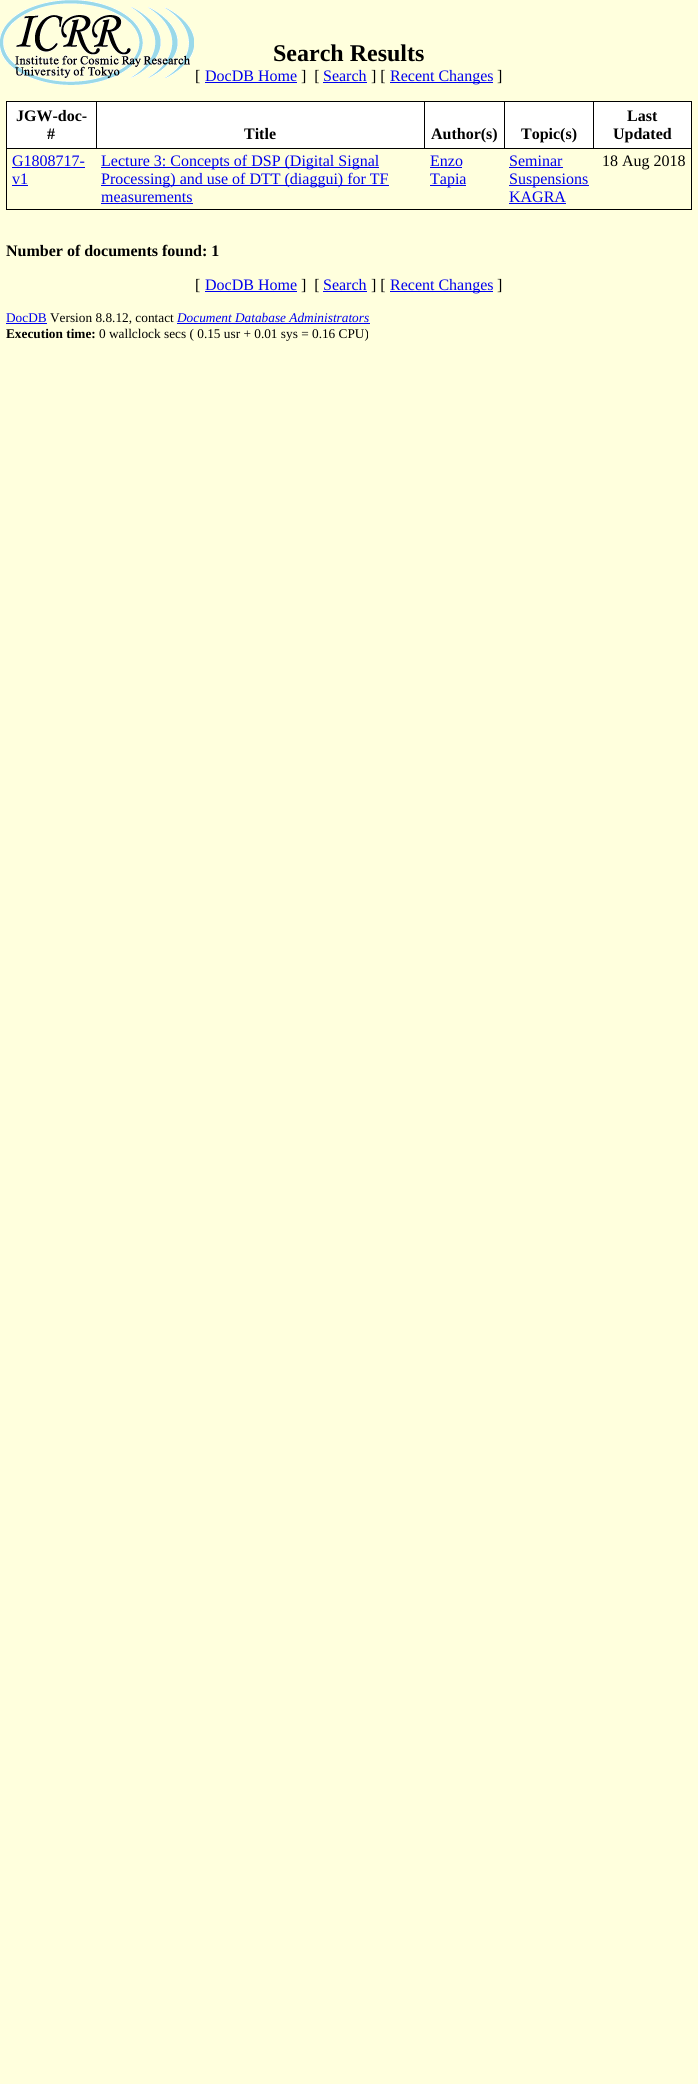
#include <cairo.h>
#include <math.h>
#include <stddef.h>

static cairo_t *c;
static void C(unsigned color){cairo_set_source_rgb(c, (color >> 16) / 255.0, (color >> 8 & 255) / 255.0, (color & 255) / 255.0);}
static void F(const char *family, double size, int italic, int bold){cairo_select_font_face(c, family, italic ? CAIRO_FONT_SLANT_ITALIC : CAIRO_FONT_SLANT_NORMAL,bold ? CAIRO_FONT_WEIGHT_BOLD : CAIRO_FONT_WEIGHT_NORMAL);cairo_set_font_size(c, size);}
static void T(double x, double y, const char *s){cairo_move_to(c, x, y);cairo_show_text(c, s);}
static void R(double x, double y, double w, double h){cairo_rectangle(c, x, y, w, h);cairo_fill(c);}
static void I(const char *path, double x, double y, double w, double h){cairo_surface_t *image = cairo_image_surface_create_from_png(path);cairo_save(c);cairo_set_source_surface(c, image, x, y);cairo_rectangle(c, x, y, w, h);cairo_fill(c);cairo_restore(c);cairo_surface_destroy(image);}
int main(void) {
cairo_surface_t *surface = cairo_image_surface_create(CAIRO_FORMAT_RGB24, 698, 2084);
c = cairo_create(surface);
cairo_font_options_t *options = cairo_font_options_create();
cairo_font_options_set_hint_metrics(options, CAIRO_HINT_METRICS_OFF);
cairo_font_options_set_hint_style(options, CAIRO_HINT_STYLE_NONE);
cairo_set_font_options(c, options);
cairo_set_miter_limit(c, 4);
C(0xffffdd);
cairo_paint(c);
I("1.png",0,0,194,85);
F("Liberation Serif",24,0,1);
C(0x000000);
T(273,61,"Search Results");
F("Liberation Serif",16,0,0);
T(195,81,"[");
C(0x0000ee);
T(205,81,"DocDB Home");
R(205,82,92,1);
C(0x000000);
T(301,81,"]  [");
C(0x0000ee);
T(323,81,"Search");
R(323,82,44,1);
C(0x000000);
T(371,81,"] [");
C(0x0000ee);
R(390,82,103,1);
T(390,81,"Recent Changes");
C(0x000000);
T(497,81,"]");
R(6,101,686,1);
R(691,101,1,109);
R(6,209,686,1);
R(6,101,1,109);
C(0xffffff);
R(7,102,89,46);
C(0x000000);
R(593,148,99,1);
R(593,101,1,48);
R(504,148,90,1);
R(504,101,1,48);
R(424,148,81,1);
R(424,101,1,48);
R(96,148,329,1);
R(96,101,1,48);
R(6,148,91,1);
F("Liberation Serif",16,0,1);
T(16,121,"JGW-doc-");
T(47,139,"#");
C(0xffffff);
R(97,102,327,46);
C(0x000000);
T(244,139,"Title");
C(0xffffff);
R(425,102,79,46);
C(0x000000);
T(431,139,"Author(s)");
C(0xffffff);
R(505,102,88,46);
C(0x000000);
T(521,139,"Topic(s)");
C(0xffffff);
R(594,102,97,46);
C(0x000000);
T(627,121,"Last");
T(613,139,"Updated");
F("Liberation Serif",16,0,0);
C(0x0000ee);
T(12,166,"G1808717-");
R(12,167,73,1);
T(12,184,"v1");
R(12,185,16,1);
R(101,167,278,1);
T(101,166,"Lecture 3: Concepts of DSP (Digital Signal");
R(101,185,288,1);
T(101,184,"Processing) and use of DTT (diaggui) for TF");
T(101,202,"measurements");
R(101,203,92,1);
T(430,166,"Enzo");
R(430,167,32,1);
R(430,185,36,1);
T(430,184,"Tapia");
T(509,166,"Seminar");
R(509,167,54,1);
R(509,185,80,1);
T(509,184,"Suspensions");
T(509,202,"KAGRA");
R(509,203,57,1);
C(0x000000);
T(602,166,"18 Aug 2018");
F("Liberation Serif",16,0,1);
T(6,256,"Number of documents found: 1");
F("Liberation Serif",16,0,0);
T(195,290,"[");
C(0x0000ee);
T(205,290,"DocDB Home");
R(205,291,92,1);
C(0x000000);
T(301,290,"]  [");
C(0x0000ee);
T(323,290,"Search");
R(323,291,44,1);
C(0x000000);
T(371,290,"] [");
C(0x0000ee);
R(390,291,103,1);
T(390,290,"Recent Changes");
C(0x000000);
T(497,290,"]");
F("Liberation Serif",13.3,0,0);
C(0x0000ee);
T(6,322,"DocDB");
R(6,323,41,1);
C(0x000000);
T(50,322,"Version 8.8.12, contact");
C(0x0000ee);
R(177,323,193,1);
F("Liberation Serif",13.3,1,0);
T(177,322,"Document Database Administrators");
F("Liberation Serif",13.3,0,1);
C(0x000000);
T(6,338,"Execution time:");
F("Liberation Serif",13.3,0,0);
T(99,338,"0 wallclock secs ( 0.15 usr + 0.01 sys = 0.16 CPU)");
cairo_surface_write_to_png(surface, "o.png");
cairo_font_options_destroy(options);
cairo_destroy(c);
cairo_surface_destroy(surface);
return 0;
}
